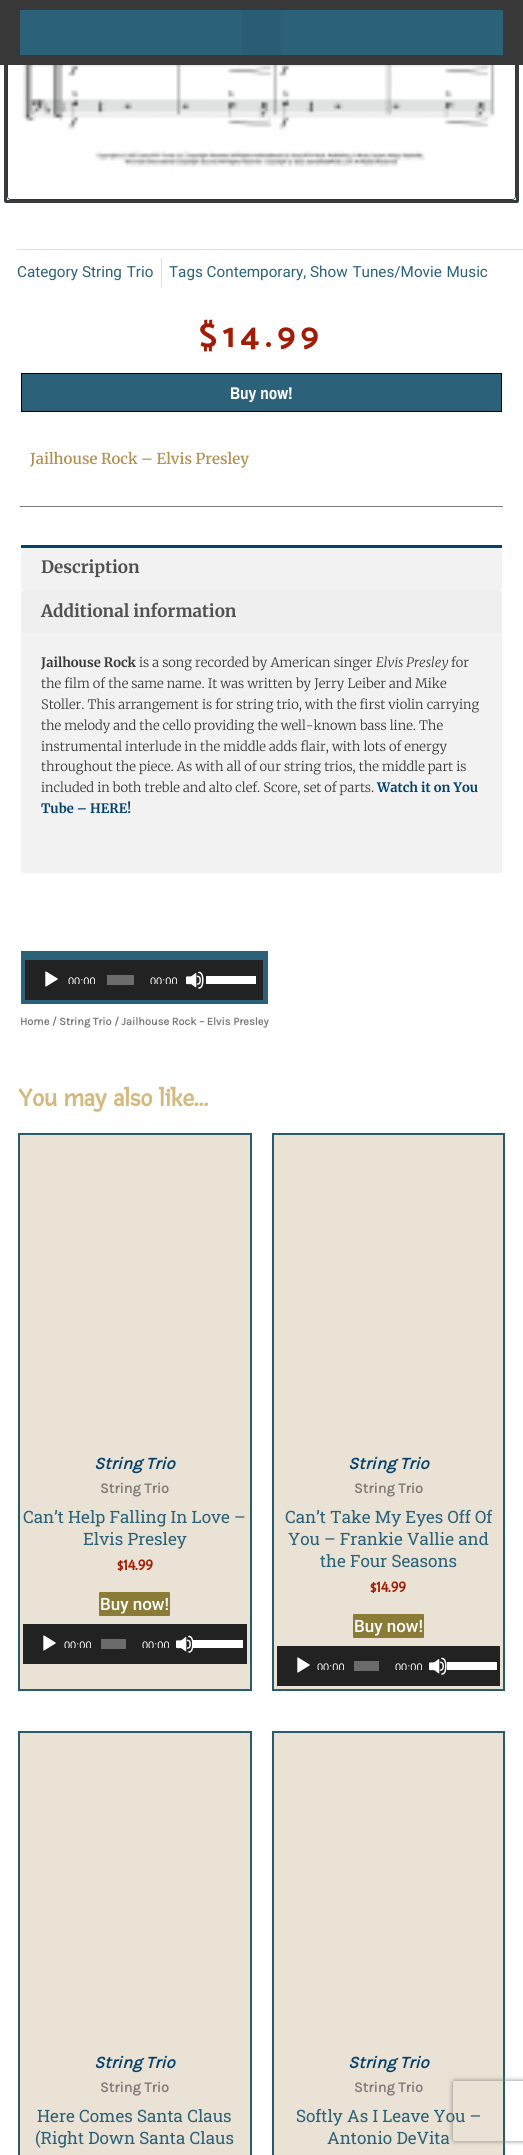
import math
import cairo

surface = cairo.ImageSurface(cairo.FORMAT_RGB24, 523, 2155)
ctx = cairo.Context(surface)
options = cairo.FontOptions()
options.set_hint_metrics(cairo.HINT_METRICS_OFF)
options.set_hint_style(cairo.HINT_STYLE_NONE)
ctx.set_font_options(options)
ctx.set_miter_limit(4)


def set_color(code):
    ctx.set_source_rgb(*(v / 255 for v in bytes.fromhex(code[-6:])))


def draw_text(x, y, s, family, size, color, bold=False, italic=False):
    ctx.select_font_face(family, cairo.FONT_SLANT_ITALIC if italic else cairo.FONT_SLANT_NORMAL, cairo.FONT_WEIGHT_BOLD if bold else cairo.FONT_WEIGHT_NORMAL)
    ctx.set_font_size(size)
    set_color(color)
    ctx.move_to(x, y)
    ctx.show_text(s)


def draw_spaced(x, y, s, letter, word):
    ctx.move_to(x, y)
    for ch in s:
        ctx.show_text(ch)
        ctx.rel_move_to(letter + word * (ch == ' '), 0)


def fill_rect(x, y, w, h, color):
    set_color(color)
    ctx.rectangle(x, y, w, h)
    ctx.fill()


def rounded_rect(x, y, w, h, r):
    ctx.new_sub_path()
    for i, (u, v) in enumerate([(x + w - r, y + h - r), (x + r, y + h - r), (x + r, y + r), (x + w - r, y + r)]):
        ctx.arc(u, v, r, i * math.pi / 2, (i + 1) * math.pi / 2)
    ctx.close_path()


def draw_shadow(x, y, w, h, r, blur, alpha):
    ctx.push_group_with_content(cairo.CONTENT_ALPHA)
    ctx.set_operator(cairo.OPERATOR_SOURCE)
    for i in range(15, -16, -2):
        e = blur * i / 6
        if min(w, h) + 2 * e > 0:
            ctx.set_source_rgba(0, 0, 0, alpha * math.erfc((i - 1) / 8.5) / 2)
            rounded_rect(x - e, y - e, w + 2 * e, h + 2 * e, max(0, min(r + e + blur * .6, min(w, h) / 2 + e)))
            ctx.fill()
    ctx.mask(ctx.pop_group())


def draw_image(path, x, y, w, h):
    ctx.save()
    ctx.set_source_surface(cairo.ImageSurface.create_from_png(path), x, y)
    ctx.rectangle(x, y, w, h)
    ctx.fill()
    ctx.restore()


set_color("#ffffff")
ctx.paint()
rounded_rect(5.5, -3.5, 512, 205, 0.5)
set_color("#3a3a3a")
ctx.set_line_width(3)
ctx.stroke()
rounded_rect(7.5, -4.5, 508, 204, 3.5)
set_color("#04426b")
ctx.set_line_width(1)
ctx.stroke()
fill_rect(0, 0, 523, 65, "#383838")
fill_rect(20, 10, 483, 45, "#2b6279")
fill_rect(242, 10, 39, 45, "#295d73")
draw_image("assets/img1.png", 8, 65, 507, 134)
fill_rect(17, 249, 506, 1, "#dddddd")
draw_text(17, 277, "Category", "Roboto", 15.25, "#2b6279")
draw_spaced(82, 277, "String Trio", 0, 1)
fill_rect(161, 258, 1, 29, "#dddddd")
draw_text(169, 277, "Tags Contemporary,", "Roboto", 15.25, "#2b6279")
draw_spaced(310, 277, "Show Tunes/Movie Music", 0, 1)
ctx.select_font_face("Catamaran", cairo.FONT_SLANT_NORMAL, cairo.FONT_WEIGHT_BOLD)
ctx.set_font_size(34)
set_color("#a01d07")
draw_spaced(199, 347, "$14.99", 5.5, 0)
set_color("#2b6279")
ctx.rectangle(21.5, 373.5, 480, 38)
ctx.fill_preserve()
set_color("#000000")
ctx.stroke()
draw_text(230, 399, "Buy now!", "Archivo Narrow", 17, "#ffffff", bold=True)
fill_rect(20, 506, 483, 1, "#7a7a7a")
draw_text(30, 464, "Jailhouse Rock – Elvis Presley", "Merriweather SemiBold", 15, "#b39151")
fill_rect(21, 548, 481, 41, "#f2f2f2")
fill_rect(21, 545, 481, 3, "#04426b")
draw_text(41, 573, "Description", "Merriweather", 17, "#515151", bold=True)
set_color("#efefef")
ctx.new_path()
ctx.move_to(25, 589)
ctx.line_to(498, 589)
ctx.curve_to(500, 589, 502, 591, 502, 593)
ctx.line_to(502, 633)
ctx.line_to(21, 633)
ctx.line_to(21, 593)
ctx.curve_to(21, 591, 23, 589, 25, 589)
ctx.close_path()
ctx.fill()
draw_text(41, 617, "Additional information", "Merriweather", 17, "#515151", bold=True)
fill_rect(21, 633, 481, 240, "#f2f2f2")
draw_text(41, 667, "Jailhouse Rock", "Merriweather", 13, "#3a3a3a", bold=True)
draw_text(139, 667, "is a song recorded by American singer", "Merriweather Light", 13, "#3a3a3a")
draw_text(376, 667, "Elvis Presley", "Merriweather Light", 13, "#3a3a3a", italic=True)
draw_text(451, 667, "for", "Merriweather Light", 13, "#3a3a3a")
draw_text(41, 688, "the film of the same name. It was written by Jerry Leiber and Mike", "Merriweather Light", 13, "#3a3a3a")
draw_text(41, 709, "Stoller. This arrangement is for string trio, with the first violin carrying", "Merriweather Light", 13, "#3a3a3a")
draw_text(41, 730, "the melody and the cello providing the well-known bass line. The", "Merriweather Light", 13, "#3a3a3a")
draw_text(41, 751, "instrumental interlude in the middle adds flair, with lots of energy", "Merriweather Light", 13, "#3a3a3a")
draw_text(41, 771, "throughout the piece. As with all of our string trios, the middle part is", "Merriweather Light", 13, "#3a3a3a")
draw_text(41, 792, "included in both treble and alto clef. Score, set of parts.", "Merriweather Light", 13, "#3a3a3a")
draw_text(377, 792, "Watch it on You", "Merriweather", 13, "#04426b", bold=True)
draw_text(41, 813, "Tube – HERE!", "Merriweather", 13, "#04426b", bold=True)
fill_rect(21, 951, 247, 53, "#2b6279")
fill_rect(25, 960, 238, 40, "#222222")
draw_image("assets/img2.png", 45, 971, 13, 16)
ctx.save()
ctx.rectangle(62, 960, 35, 24)
ctx.clip()
draw_text(68, 985, "00:00", "Liberation Sans", 11, "#ffffff")
ctx.restore()
fill_rect(107, 975, 27, 10, "#6b6b6b")
ctx.save()
ctx.rectangle(144, 960, 35, 24)
ctx.clip()
draw_text(150, 985, "00:00", "Liberation Sans", 11, "#ffffff")
ctx.restore()
draw_image("assets/img3.png", 186, 971, 18, 18)
fill_rect(206, 976, 50, 8, "#ffffff")
draw_text(20, 1025, "Home / String Trio / Jailhouse Rock – Elvis Presley", "Karla", 11, "#777777", bold=True)
draw_text(18, 1106, "You may also like…", "Fresca", 25.5, "#d5ba7f", bold=True)
set_color("#eae2d4")
ctx.rectangle(19, 1134, 232, 556)
ctx.fill_preserve()
set_color("#285b6c")
ctx.set_line_width(2)
ctx.stroke()
draw_text(94, 1469, "String Trio", "Karla", 17, "#04426b", bold=True, italic=True)
draw_text(100, 1493, "String Trio", "Karla", 14.5, "#807d78", bold=True)
draw_text(23, 1523, "Can’t Help Falling In Love –", "Roboto Slab", 17, "#2b6279")
draw_text(83, 1545, "Elvis Presley", "Roboto Slab", 17, "#2b6279")
draw_text(117, 1570, "$14.99", "Fresca", 15.25, "#a01d07", bold=True)
set_color("#8a7b37")
rounded_rect(99, 1592, 71, 24, 1)
ctx.fill()
draw_text(100, 1610, "Buy now!", "Roboto Medium", 17, "#ffffff")
fill_rect(23, 1624, 224, 40, "#222222")
draw_image("assets/img2.png", 43, 1635, 13, 16)
ctx.save()
ctx.rectangle(58, 1624, 33, 24)
ctx.clip()
draw_text(64, 1649, "00:00", "Liberation Sans", 11, "#ffffff")
ctx.restore()
fill_rect(101, 1639, 25, 10, "#6b6b6b")
ctx.save()
ctx.rectangle(136, 1624, 33, 24)
ctx.clip()
draw_text(142, 1649, "00:00", "Liberation Sans", 11, "#ffffff")
ctx.restore()
draw_image("assets/img3.png", 176, 1635, 18, 18)
fill_rect(193, 1640, 50, 8, "#ffffff")
set_color("#eae2d4")
ctx.rectangle(273, 1134, 231, 556)
ctx.fill_preserve()
set_color("#285b6c")
ctx.stroke()
draw_text(348, 1469, "String Trio", "Karla", 17, "#04426b", bold=True, italic=True)
draw_text(354, 1493, "String Trio", "Karla", 14.5, "#807d78", bold=True)
draw_text(285, 1523, "Can’t Take My Eyes Off Of", "Roboto Slab", 17, "#2b6279")
draw_text(288, 1545, "You – Frankie Vallie and", "Roboto Slab", 17, "#2b6279")
draw_text(320, 1567, "the Four Seasons", "Roboto Slab", 17, "#2b6279")
draw_text(370, 1592, "$14.99", "Fresca", 15.25, "#a01d07", bold=True)
set_color("#8a7b37")
rounded_rect(353, 1614, 71, 24, 1)
ctx.fill()
draw_text(354, 1632, "Buy now!", "Roboto Medium", 17, "#ffffff")
fill_rect(277, 1646, 223, 40, "#222222")
draw_image("assets/img2.png", 297, 1657, 13, 16)
ctx.save()
ctx.rectangle(311, 1646, 33, 24)
ctx.clip()
draw_text(317, 1671, "00:00", "Liberation Sans", 11, "#ffffff")
ctx.restore()
fill_rect(354, 1661, 25, 10, "#6b6b6b")
ctx.save()
ctx.rectangle(389, 1646, 33, 24)
ctx.clip()
draw_text(395, 1671, "00:00", "Liberation Sans", 11, "#ffffff")
ctx.restore()
draw_image("assets/img3.png", 429, 1657, 18, 18)
fill_rect(447, 1662, 50, 8, "#ffffff")
set_color("#eae2d4")
ctx.rectangle(19, 1732, 232, 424)
ctx.fill_preserve()
set_color("#285b6c")
ctx.stroke()
draw_text(94, 2068, "String Trio", "Karla", 17, "#04426b", bold=True, italic=True)
draw_text(100, 2092, "String Trio", "Karla", 14.5, "#807d78", bold=True)
draw_text(37, 2122, "Here Comes Santa Claus", "Roboto Slab", 17, "#2b6279")
draw_text(35, 2144, "(Right Down Santa Claus", "Roboto Slab", 17, "#2b6279")
set_color("#eae2d4")
ctx.rectangle(273, 1732, 231, 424)
ctx.fill_preserve()
set_color("#285b6c")
ctx.stroke()
draw_text(348, 2068, "String Trio", "Karla", 17, "#04426b", bold=True, italic=True)
draw_text(354, 2092, "String Trio", "Karla", 14.5, "#807d78", bold=True)
draw_text(296, 2122, "Softly As I Leave You –", "Roboto Slab", 17, "#2b6279")
draw_text(327, 2144, "Antonio DeVita", "Roboto Slab", 17, "#2b6279")
ctx.save()
ctx.set_fill_rule(cairo.FILL_RULE_EVEN_ODD)
ctx.new_path()
ctx.move_to(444, 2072)
ctx.line_to(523, 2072)
ctx.line_to(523, 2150)
ctx.line_to(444, 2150)
ctx.close_path()
ctx.move_to(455, 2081)
ctx.line_to(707, 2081)
ctx.curve_to(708, 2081, 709, 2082, 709, 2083)
ctx.line_to(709, 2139)
ctx.curve_to(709, 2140, 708, 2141, 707, 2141)
ctx.line_to(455, 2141)
ctx.curve_to(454, 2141, 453, 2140, 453, 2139)
ctx.line_to(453, 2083)
ctx.curve_to(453, 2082, 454, 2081, 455, 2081)
ctx.close_path()
ctx.clip()
set_color("#808080")
draw_shadow(453, 2081, 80, 60, 2, 2.5, 1)
ctx.restore()
surface.write_to_png("output.png")
